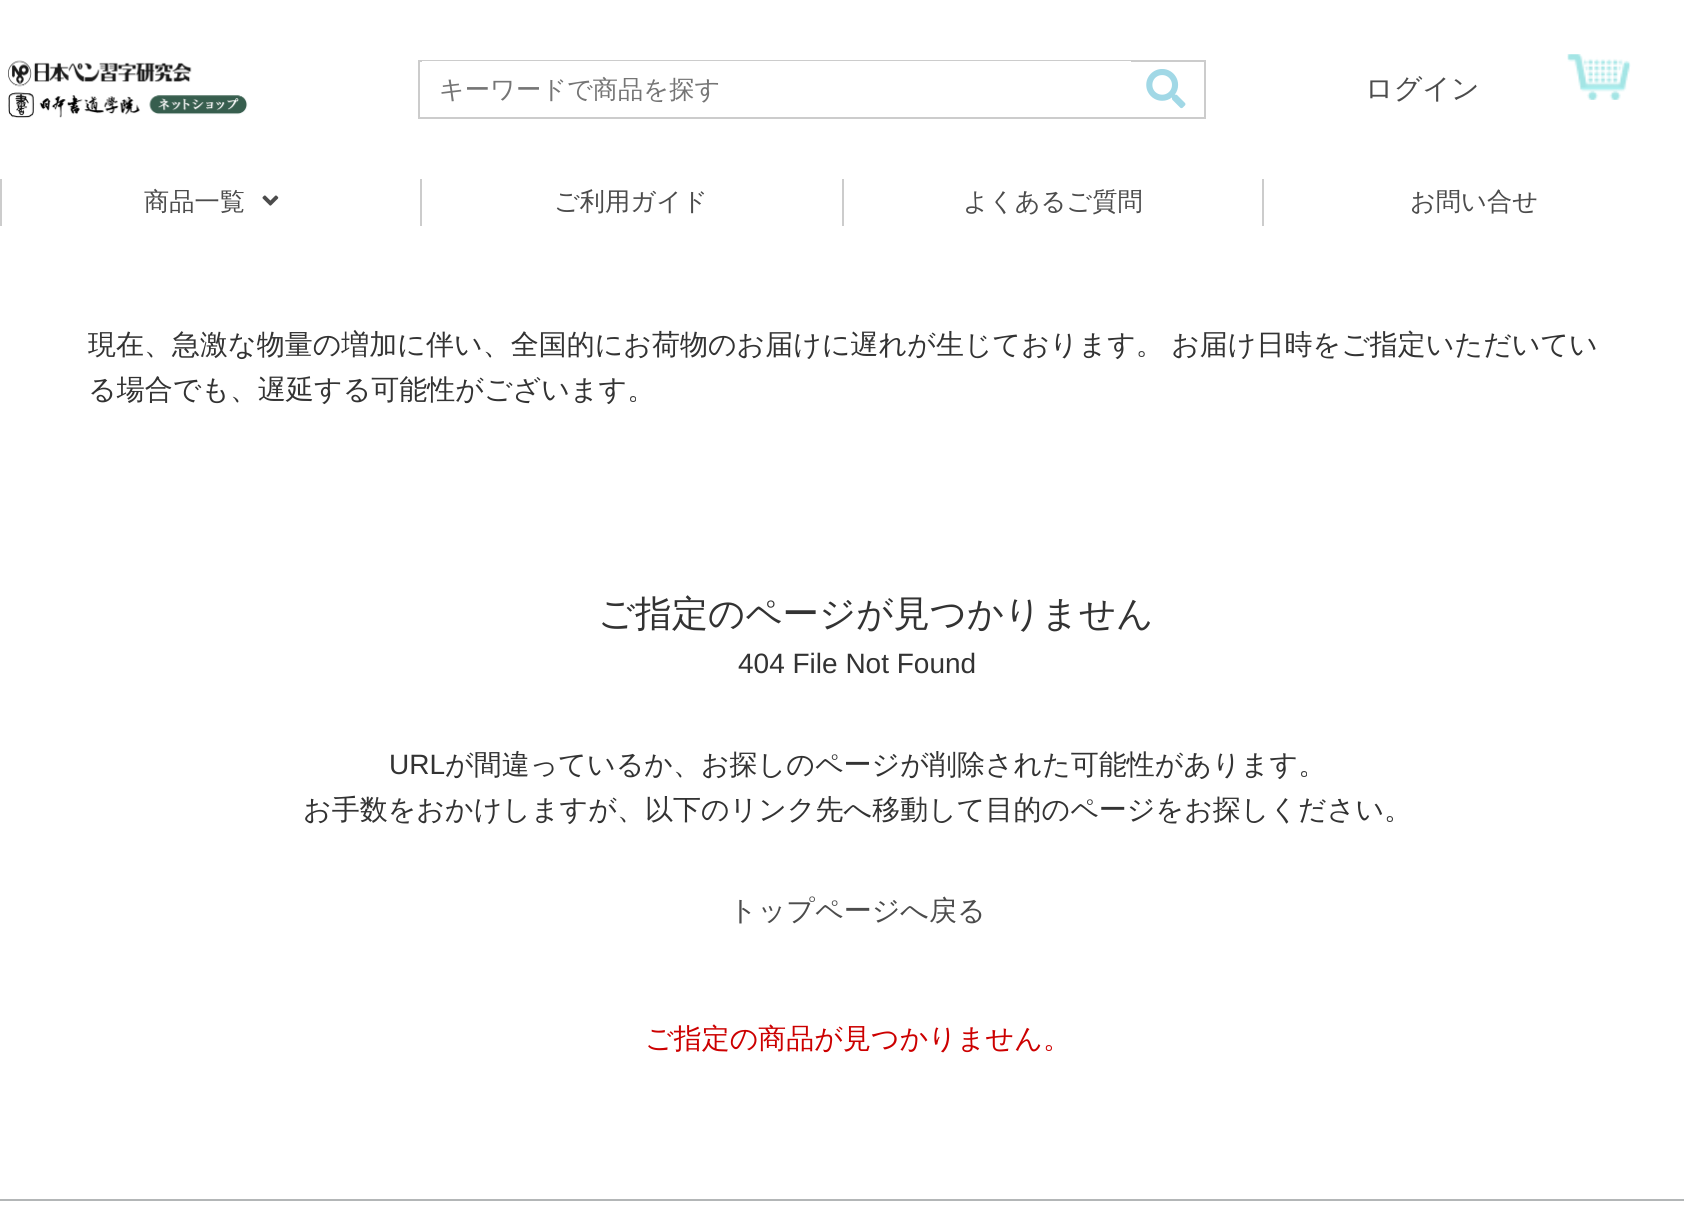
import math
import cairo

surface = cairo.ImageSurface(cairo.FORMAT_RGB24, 1684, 1220)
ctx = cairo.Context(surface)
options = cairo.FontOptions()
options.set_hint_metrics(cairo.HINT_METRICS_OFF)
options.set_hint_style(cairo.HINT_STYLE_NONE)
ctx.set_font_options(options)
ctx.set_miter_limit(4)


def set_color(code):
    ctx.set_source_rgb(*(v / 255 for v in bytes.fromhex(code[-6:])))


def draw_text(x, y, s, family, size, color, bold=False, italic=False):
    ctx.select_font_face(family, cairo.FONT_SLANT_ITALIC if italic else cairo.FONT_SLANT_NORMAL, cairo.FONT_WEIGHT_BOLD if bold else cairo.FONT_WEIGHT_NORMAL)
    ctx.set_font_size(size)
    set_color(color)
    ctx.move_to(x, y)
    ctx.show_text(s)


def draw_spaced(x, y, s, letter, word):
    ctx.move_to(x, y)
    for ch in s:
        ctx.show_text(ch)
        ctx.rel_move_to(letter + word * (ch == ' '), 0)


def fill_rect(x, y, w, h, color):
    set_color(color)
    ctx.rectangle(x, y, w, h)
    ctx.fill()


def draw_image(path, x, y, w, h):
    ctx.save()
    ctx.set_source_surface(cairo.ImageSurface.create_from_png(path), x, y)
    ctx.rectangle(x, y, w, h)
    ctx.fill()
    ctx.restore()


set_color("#ffffff")
ctx.paint()
draw_image("assets/img1.png", 8, 60, 240, 58)
ctx.rectangle(419, 61, 786, 57)
set_color("#cccccc")
ctx.stroke()
fill_rect(422, 61, 709, 1, "#ffffff")
draw_text(439, 98, "キーワードで商品を探す", "WenQuanYi Zen Hei Medium", 25.25, "#757575")
draw_image("assets/img2.png", 1146, 69, 40, 40)
draw_text(1365, 98, "ログイン", "WenQuanYi Zen Hei Medium", 28, "#4c4c4c")
draw_image("assets/img3.png", 1567, 54, 64, 46)
fill_rect(420, 179, 2, 47, "#cccccc")
fill_rect(0, 179, 2, 47, "#cccccc")
draw_text(144, 210, "商品一覧", "WenQuanYi Zen Hei Medium", 25.25, "#4c4c4c")
draw_image("assets/img4.png", 262, 195, 17, 11)
fill_rect(842, 179, 2, 47, "#cccccc")
draw_text(554, 210, "ご利用ガイド", "WenQuanYi Zen Hei Medium", 25.25, "#4c4c4c")
fill_rect(1262, 179, 2, 47, "#cccccc")
draw_text(963, 210, "よくあるご質問", "WenQuanYi Zen Hei Medium", 25.25, "#4c4c4c")
draw_text(1410, 210, "お問い合せ", "WenQuanYi Zen Hei Medium", 25.25, "#4c4c4c")
ctx.set_font_size(28)
set_color("#333333")
draw_spaced(88, 354, "現在、急激な物量の増加に伴い、全国的にお荷物のお届けに遅れが生じております。 お届け日時をご指定いただいてい", 0, -1)
draw_text(88, 399, "る場合でも、遅延する可能性がございます。", "WenQuanYi Zen Hei Medium", 28, "#333333")
draw_text(598, 626, "ご指定のページが見つかりません", "WenQuanYi Zen Hei Medium", 36.4, "#333333")
draw_text(738, 673, "404 File Not Found", "Liberation Sans", 28, "#333333")
draw_text(389, 774, "URL", "Liberation Sans", 28, "#333333")
draw_text(445, 774, "が間違っているか、お探しのページが削除された可能性があります。", "WenQuanYi Zen Hei Medium", 28, "#333333")
draw_text(303, 819, "お手数をおかけしますが、以下のリンク先へ移動して目的のページをお探しください。", "WenQuanYi Zen Hei Medium", 28, "#333333")
draw_text(729, 920, "トップページへ戻る", "WenQuanYi Zen Hei Medium", 28, "#4c4c4c")
draw_text(645, 1048, "ご指定の商品が見つかりません。", "WenQuanYi Zen Hei Medium", 28, "#cc0000")
fill_rect(0, 1199, 1684, 2, "#b3b6b7")
surface.write_to_png("output.png")
